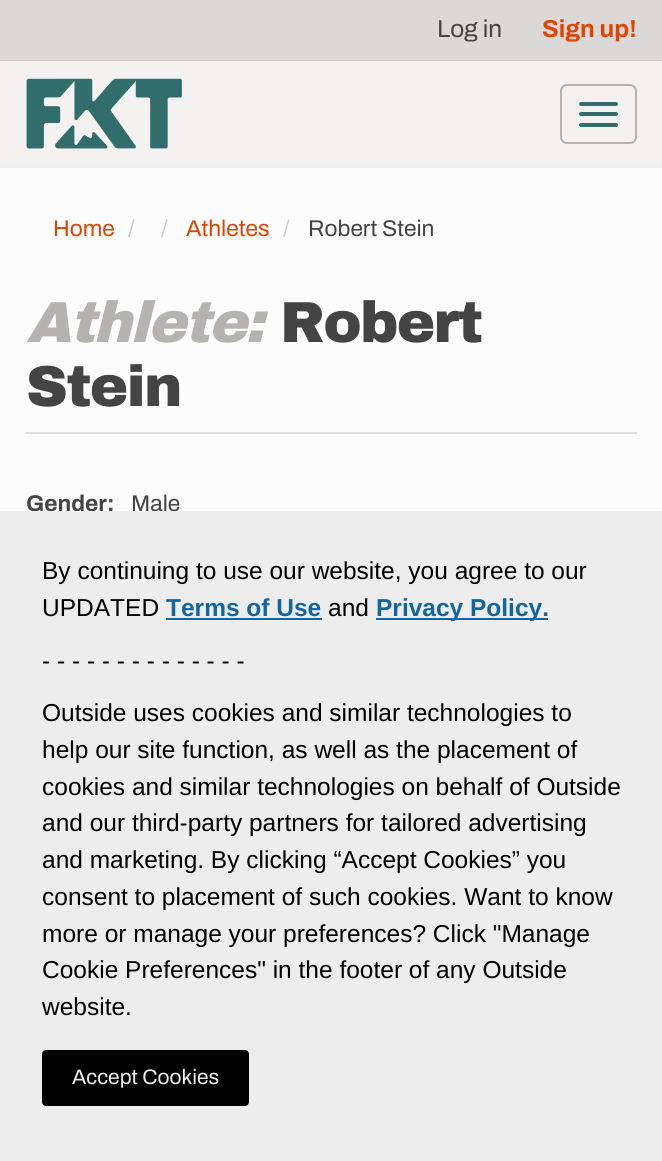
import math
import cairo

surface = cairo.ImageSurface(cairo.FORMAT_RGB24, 662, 1161)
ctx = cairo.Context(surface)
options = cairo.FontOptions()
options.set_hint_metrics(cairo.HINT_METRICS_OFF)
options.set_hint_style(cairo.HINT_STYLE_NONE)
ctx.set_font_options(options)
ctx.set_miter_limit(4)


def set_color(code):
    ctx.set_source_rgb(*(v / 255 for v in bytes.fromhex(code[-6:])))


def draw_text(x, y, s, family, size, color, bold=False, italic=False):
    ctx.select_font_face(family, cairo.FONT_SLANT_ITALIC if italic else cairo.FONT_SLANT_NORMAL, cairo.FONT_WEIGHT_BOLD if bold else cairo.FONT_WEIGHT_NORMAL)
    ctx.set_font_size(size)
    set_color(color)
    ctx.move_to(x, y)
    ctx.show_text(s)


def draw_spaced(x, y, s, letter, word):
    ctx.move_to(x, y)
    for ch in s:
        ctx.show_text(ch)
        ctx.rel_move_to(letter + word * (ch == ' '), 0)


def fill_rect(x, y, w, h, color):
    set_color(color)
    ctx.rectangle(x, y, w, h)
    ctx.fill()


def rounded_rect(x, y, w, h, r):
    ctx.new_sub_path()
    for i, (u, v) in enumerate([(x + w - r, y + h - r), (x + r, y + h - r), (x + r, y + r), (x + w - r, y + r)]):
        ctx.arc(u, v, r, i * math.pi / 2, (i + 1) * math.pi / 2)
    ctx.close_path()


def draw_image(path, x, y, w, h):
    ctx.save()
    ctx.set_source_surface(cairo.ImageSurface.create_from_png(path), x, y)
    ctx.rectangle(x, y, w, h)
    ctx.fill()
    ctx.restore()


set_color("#fcfcfc")
ctx.paint()
fill_rect(0, 0, 662, 60, "#dad9d7")
fill_rect(0, 60, 662, 1, "#ceccca")
draw_text(437, 37, "Log in", "Archivo", 24.5, "#444444")
draw_text(542, 37, "Sign up!", "Archivo", 24.5, "#e14400", bold=True)
fill_rect(0, 61, 662, 105, "#f3f2f1")
fill_rect(0, 166, 662, 2, "#eeeeee")
draw_image("assets/img1.png", 26, 78, 156, 71)
rounded_rect(561, 85, 75, 58, 6)
set_color("#b5b3af")
ctx.stroke()
set_color("#336c6b")
rounded_rect(579, 102, 39, 4, 2)
ctx.fill()
rounded_rect(579, 112, 39, 4, 2)
ctx.fill()
rounded_rect(579, 123, 39, 4, 2)
ctx.fill()
draw_text(53, 236, "Home", "Archivo", 22.75, "#e14400")
draw_text(128, 236, "/", "Archivo", 22.75, "#cccccc")
draw_text(161, 236, "/", "Archivo", 22.75, "#cccccc")
draw_text(186, 236, "Athletes", "Archivo", 22.75, "#e14400")
draw_text(283, 236, "/", "Archivo", 22.75, "#cccccc")
draw_text(308, 236, "Robert Stein", "Archivo", 22.75, "#444444")
fill_rect(26, 432, 611, 2, "#dddddd")
ctx.select_font_face("Archivo Black Black", cairo.FONT_SLANT_ITALIC)
ctx.set_font_size(57.75)
set_color("#b5b3af")
draw_spaced(26, 342, "Athlete:", -1.75, 0)
ctx.select_font_face("Archivo Black Black")
set_color("#444444")
draw_spaced(280, 342, "Robert", -1.75, 0)
draw_spaced(26, 406, "Stein", -1.75, 0)
draw_text(26, 511, "Gender:", "Archivo", 22.75, "#444444", bold=True)
draw_text(131, 511, "Male", "Archivo", 22.75, "#444444")
fill_rect(0, 511, 662, 650, "#ededed")
draw_text(42, 579, "By continuing to use our website, you agree to our", "Liberation Sans", 24.5, "#000000")
draw_text(42, 616, "UPDATED", "Liberation Sans", 24.5, "#000000")
draw_text(166, 616, "Terms of Use", "Liberation Sans", 24.5, "#1264a3", bold=True)
fill_rect(166, 618, 156, 2, "#1264a3")
draw_text(328, 616, "and", "Liberation Sans", 24.5, "#000000")
fill_rect(376, 618, 172, 2, "#1264a3")
draw_text(376, 616, "Privacy Policy.", "Liberation Sans", 24.5, "#1264a3", bold=True)
draw_text(42, 669, "- - - - - - - - - - - - - -", "Liberation Sans", 24.5, "#000000")
draw_text(42, 721, "Outside uses cookies and similar technologies to", "Liberation Sans", 24.5, "#000000")
draw_text(42, 758, "help our site function, as well as the placement of", "Liberation Sans", 24.5, "#000000")
draw_text(42, 795, "cookies and similar technologies on behalf of Outside", "Liberation Sans", 24.5, "#000000")
draw_text(42, 831, "and our third-party partners for tailored advertising", "Liberation Sans", 24.5, "#000000")
draw_text(42, 868, "and marketing. By clicking “Accept Cookies” you", "Liberation Sans", 24.5, "#000000")
draw_text(42, 905, "consent to placement of such cookies. Want to know", "Liberation Sans", 24.5, "#000000")
draw_text(42, 942, "more or manage your preferences? Click \"Manage", "Liberation Sans", 24.5, "#000000")
draw_text(42, 978, "Cookie Preferences\" in the footer of any Outside", "Liberation Sans", 24.5, "#000000")
draw_text(42, 1015, "website.", "Liberation Sans", 24.5, "#000000")
rounded_rect(43, 1051, 205, 54, 3)
ctx.fill_preserve()
ctx.stroke()
draw_text(72, 1084, "Accept Cookies", "Archivo", 21, "#ededed")
surface.write_to_png("output.png")
